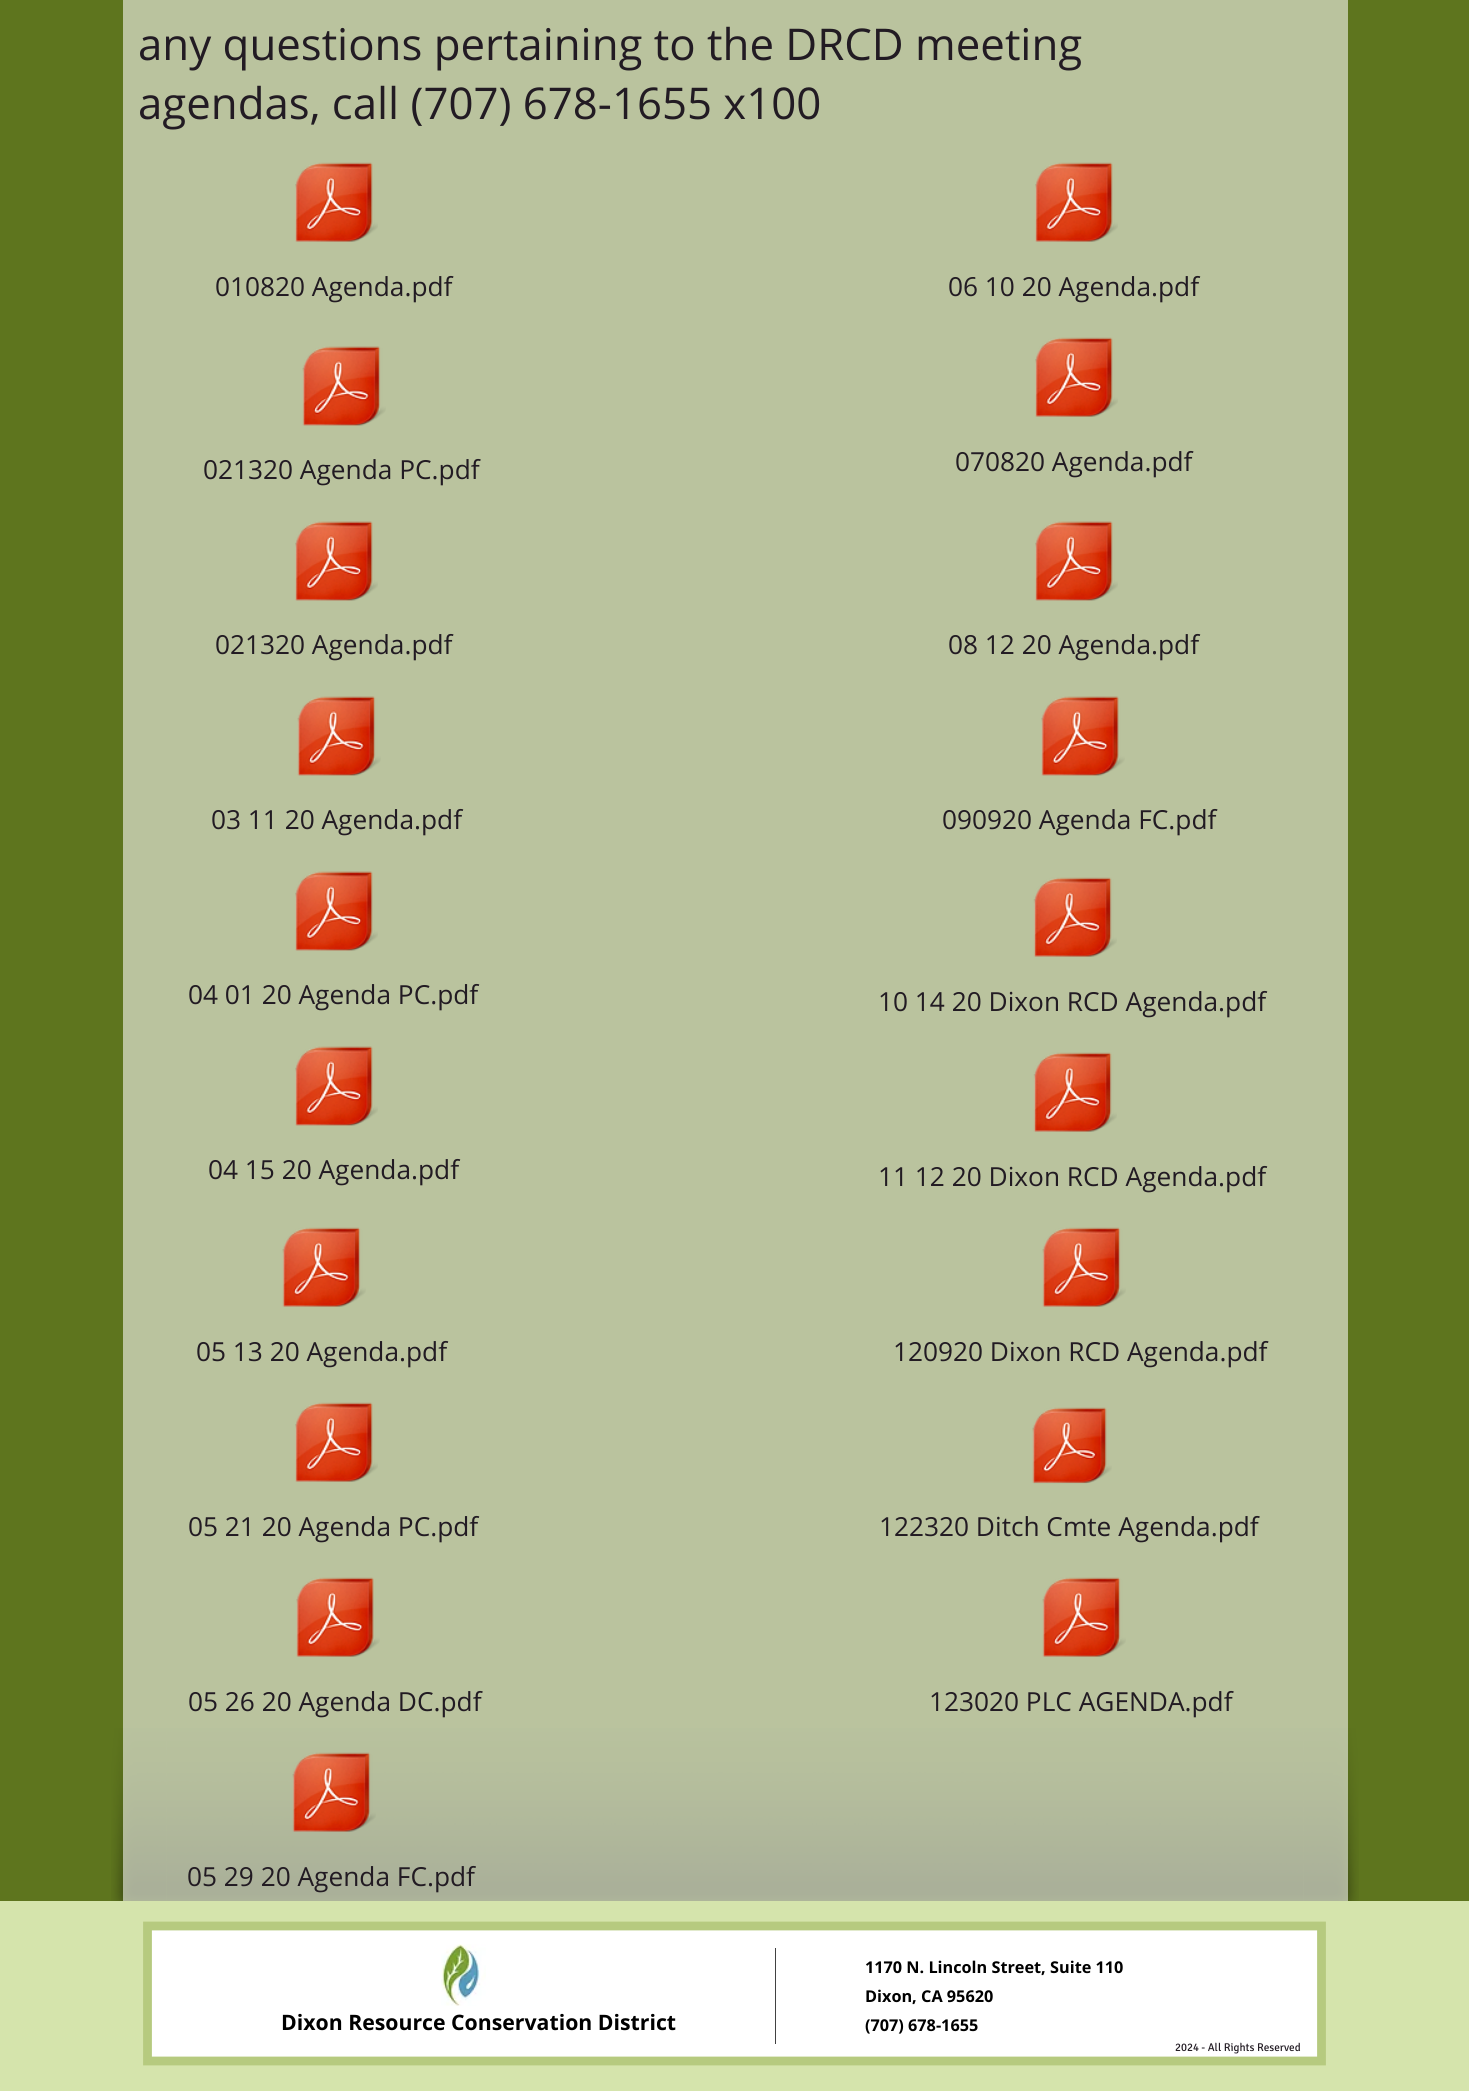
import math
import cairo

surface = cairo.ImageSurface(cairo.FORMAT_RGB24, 1469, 2091)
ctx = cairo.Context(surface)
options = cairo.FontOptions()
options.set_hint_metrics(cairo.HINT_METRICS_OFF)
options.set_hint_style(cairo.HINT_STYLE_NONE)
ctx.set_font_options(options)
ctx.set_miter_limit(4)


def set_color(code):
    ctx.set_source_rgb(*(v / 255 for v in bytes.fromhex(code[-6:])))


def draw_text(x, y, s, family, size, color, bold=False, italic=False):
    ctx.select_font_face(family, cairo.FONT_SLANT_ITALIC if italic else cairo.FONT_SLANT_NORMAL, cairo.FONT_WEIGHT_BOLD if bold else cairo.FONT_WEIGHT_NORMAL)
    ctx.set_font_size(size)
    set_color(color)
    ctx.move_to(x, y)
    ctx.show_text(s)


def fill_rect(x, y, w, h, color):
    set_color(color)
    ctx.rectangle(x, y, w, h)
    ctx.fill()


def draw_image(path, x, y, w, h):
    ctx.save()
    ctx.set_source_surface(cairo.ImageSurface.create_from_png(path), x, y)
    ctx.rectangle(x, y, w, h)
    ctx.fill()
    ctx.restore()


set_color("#5e751e")
ctx.paint()
draw_image("assets/img1.png", 111, 1728, 56, 173)
draw_image("assets/img2.png", 166, 1728, 1138, 173)
draw_image("assets/img3.png", 1303, 1728, 56, 173)
ctx.set_source_rgba(1, 1, 1, 0.57)
ctx.rectangle(123, 0, 1225, 1901)
ctx.fill()
draw_text(138, 60, "any questions pertaining to the DRCD meeting", "Open Sans", 43.75, "#221b23")
draw_text(138, 119, "agendas, call (707) 678-1655 x100", "Open Sans", 43.75, "#221b23")
draw_image("assets/img4.png", 295, 162, 83, 80)
draw_text(215, 296, "010820 Agenda.pdf", "Open Sans", 26.25, "#221b23")
draw_image("assets/img4.png", 1035, 162, 83, 80)
draw_text(948, 296, "06 10 20 Agenda.pdf", "Open Sans", 26.25, "#221b23")
draw_image("assets/img5.png", 302, 346, 84, 80)
draw_text(203, 479, "021320 Agenda PC.pdf", "Open Sans", 26.25, "#221b23")
draw_image("assets/img4.png", 1035, 337, 83, 80)
draw_text(955, 471, "070820 Agenda.pdf", "Open Sans", 26.25, "#221b23")
draw_image("assets/img6.png", 295, 521, 83, 80)
draw_text(215, 654, "021320 Agenda.pdf", "Open Sans", 26.25, "#221b23")
draw_image("assets/img6.png", 1035, 521, 83, 80)
draw_text(948, 654, "08 12 20 Agenda.pdf", "Open Sans", 26.25, "#221b23")
draw_image("assets/img5.png", 297, 696, 84, 80)
draw_text(211, 829, "03 11 20 Agenda.pdf", "Open Sans", 26.25, "#221b23")
draw_image("assets/img7.png", 1041, 696, 84, 80)
draw_text(942, 829, "090920 Agenda FC.pdf", "Open Sans", 26.25, "#221b23")
draw_image("assets/img6.png", 295, 871, 83, 80)
draw_text(188, 1004, "04 01 20 Agenda PC.pdf", "Open Sans", 26.25, "#221b23")
draw_image("assets/img8.png", 1033, 877, 84, 80)
draw_text(878, 1011, "10 14 20 Dixon RCD Agenda.pdf", "Open Sans", 26.25, "#221b23")
draw_image("assets/img6.png", 295, 1046, 83, 80)
draw_text(208, 1179, "04 15 20 Agenda.pdf", "Open Sans", 26.25, "#221b23")
draw_image("assets/img8.png", 1033, 1052, 84, 80)
draw_text(878, 1186, "11 12 20 Dixon RCD Agenda.pdf", "Open Sans", 26.25, "#221b23")
draw_image("assets/img9.png", 282, 1227, 84, 80)
draw_text(196, 1361, "05 13 20 Agenda.pdf", "Open Sans", 26.25, "#221b23")
draw_image("assets/img9.png", 1042, 1227, 84, 80)
draw_text(893, 1361, "120920 Dixon RCD Agenda.pdf", "Open Sans", 26.25, "#221b23")
draw_image("assets/img4.png", 295, 1402, 83, 80)
draw_text(188, 1536, "05 21 20 Agenda PC.pdf", "Open Sans", 26.25, "#221b23")
draw_image("assets/img10.png", 1032, 1407, 80, 77)
draw_text(879, 1536, "122320 Ditch Cmte Agenda.pdf", "Open Sans", 26.25, "#221b23")
draw_image("assets/img11.png", 296, 1577, 84, 80)
draw_text(188, 1711, "05 26 20 Agenda DC.pdf", "Open Sans", 26.25, "#221b23")
draw_image("assets/img9.png", 1042, 1577, 84, 80)
draw_text(929, 1711, "123020 PLC AGENDA.pdf", "Open Sans", 26.25, "#221b23")
draw_image("assets/img12.png", 292, 1752, 84, 80)
draw_text(187, 1886, "05 29 20 Agenda FC.pdf", "Open Sans", 26.25, "#221b23")
fill_rect(0, 1901, 1469, 190, "#d5e4ac")
fill_rect(151, 1930, 1167, 127, "#ffffff")
ctx.new_path()
ctx.move_to(1321.5, 1926)
ctx.line_to(1321.5, 2061)
ctx.line_to(147.5, 2061)
ctx.line_to(147.5, 1926)
ctx.close_path()
set_color("#b6ca7f")
ctx.set_line_width(8.8)
ctx.stroke()
draw_image("assets/img13.png", 441, 1944, 45, 62)
fill_rect(775, 1948, 1, 96, "#424242")
draw_text(865, 1973, "1170 N. Lincoln Street, Suite 110", "Open Sans", 16.25, "#000000", bold=True)
draw_text(865, 2002, "Dixon, CA 95620", "Open Sans", 16.25, "#000000", bold=True)
draw_text(865, 2031, "(707) 678-1655", "Open Sans", 16.25, "#000000", bold=True)
draw_text(281, 2030, "Dixon Resource Conservation District", "Open Sans", 21.25, "#000000", bold=True)
draw_text(1175, 2051, "2024 - All Rights Reserved", "Signika", 11.25, "#221b23")
surface.write_to_png("output.png")
